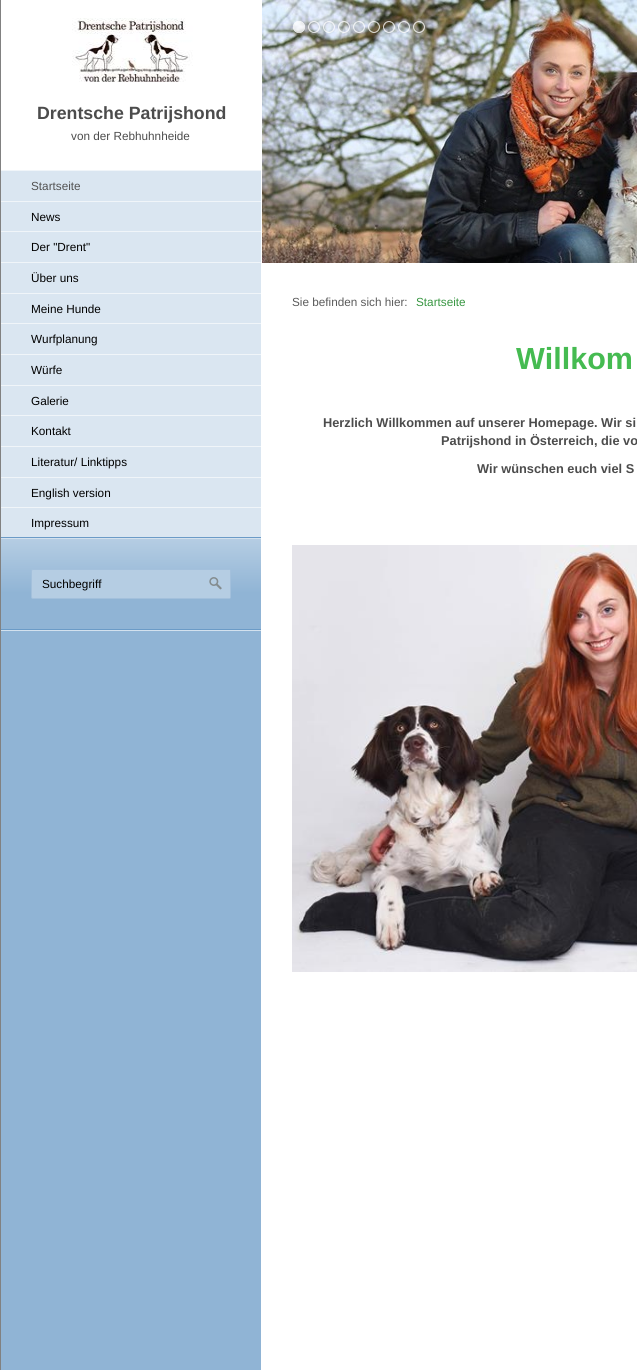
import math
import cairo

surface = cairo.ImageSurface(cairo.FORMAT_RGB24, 637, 1370)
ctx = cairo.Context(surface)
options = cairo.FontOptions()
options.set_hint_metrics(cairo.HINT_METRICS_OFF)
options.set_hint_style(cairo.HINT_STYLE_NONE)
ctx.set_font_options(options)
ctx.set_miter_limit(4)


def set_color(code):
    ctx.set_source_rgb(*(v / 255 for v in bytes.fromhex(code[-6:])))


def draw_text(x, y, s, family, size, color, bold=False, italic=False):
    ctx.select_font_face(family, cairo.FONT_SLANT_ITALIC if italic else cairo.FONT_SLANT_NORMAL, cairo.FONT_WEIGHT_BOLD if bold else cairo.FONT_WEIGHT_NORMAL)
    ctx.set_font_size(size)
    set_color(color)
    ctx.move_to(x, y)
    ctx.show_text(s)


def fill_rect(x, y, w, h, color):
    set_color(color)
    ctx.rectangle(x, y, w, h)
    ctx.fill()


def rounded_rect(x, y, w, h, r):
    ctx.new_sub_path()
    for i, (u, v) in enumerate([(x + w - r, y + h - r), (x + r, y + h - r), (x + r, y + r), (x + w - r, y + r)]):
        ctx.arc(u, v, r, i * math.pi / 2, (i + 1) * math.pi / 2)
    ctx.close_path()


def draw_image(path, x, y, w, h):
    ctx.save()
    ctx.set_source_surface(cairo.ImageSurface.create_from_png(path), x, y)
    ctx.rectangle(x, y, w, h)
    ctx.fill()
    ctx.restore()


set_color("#ffffff")
ctx.paint()
fill_rect(0, 0, 1, 1370, "#818181")
fill_rect(1, 631, 260, 739, "#90b4d5")
draw_image("assets/img1.png", 72, 18, 121, 64)
draw_text(37, 119, "Drentsche Patrijshond", "Liberation Sans", 17.75, "#4c4c4c", bold=True)
draw_text(71, 140, "von der Rebhuhnheide", "Liberation Sans", 11.75, "#4c4c4c")
fill_rect(1, 171, 260, 30, "#dae6f1")
fill_rect(1, 170, 260, 1, "#f0f5f9")
draw_text(31, 190, "Startseite", "Liberation Sans", 11.75, "#525252")
fill_rect(1, 202, 260, 29, "#dae6f1")
fill_rect(1, 201, 260, 1, "#f0f5f9")
draw_text(31, 221, "News", "Liberation Sans", 11.75, "#000000")
fill_rect(1, 232, 260, 30, "#dae6f1")
fill_rect(1, 231, 260, 1, "#f0f5f9")
draw_text(31, 251, "Der \"Drent\"", "Liberation Sans", 11.75, "#000000")
fill_rect(1, 263, 260, 30, "#dae6f1")
fill_rect(1, 262, 260, 1, "#f0f5f9")
draw_text(31, 282, "Über uns", "Liberation Sans", 11.75, "#000000")
fill_rect(1, 294, 260, 29, "#dae6f1")
fill_rect(1, 293, 260, 1, "#f0f5f9")
draw_text(31, 313, "Meine Hunde", "Liberation Sans", 11.75, "#000000")
fill_rect(1, 324, 260, 30, "#dae6f1")
fill_rect(1, 323, 260, 1, "#f0f5f9")
draw_text(31, 343, "Wurfplanung", "Liberation Sans", 11.75, "#000000")
fill_rect(1, 355, 260, 30, "#dae6f1")
fill_rect(1, 354, 260, 1, "#f0f5f9")
draw_text(31, 374, "Würfe", "Liberation Sans", 11.75, "#000000")
fill_rect(1, 386, 260, 29, "#dae6f1")
fill_rect(1, 385, 260, 1, "#f0f5f9")
draw_text(31, 405, "Galerie", "Liberation Sans", 11.75, "#000000")
fill_rect(1, 416, 260, 30, "#dae6f1")
fill_rect(1, 415, 260, 1, "#f0f5f9")
draw_text(31, 435, "Kontakt", "Liberation Sans", 11.75, "#000000")
fill_rect(1, 447, 260, 30, "#dae6f1")
fill_rect(1, 446, 260, 1, "#f0f5f9")
draw_text(31, 466, "Literatur/ Linktipps", "Liberation Sans", 11.75, "#000000")
fill_rect(1, 478, 260, 29, "#dae6f1")
fill_rect(1, 477, 260, 1, "#f0f5f9")
draw_text(31, 497, "English version", "Liberation Sans", 11.75, "#000000")
fill_rect(1, 508, 260, 29, "#dae6f1")
fill_rect(1, 507, 260, 1, "#f0f5f9")
draw_text(31, 527, "Impressum", "Liberation Sans", 11.75, "#000000")
fill_rect(1, 630, 260, 1, "#d3e1ee")
fill_rect(1, 537, 260, 1, "#6b9bc7")
gradient = cairo.LinearGradient(131, 539, 131, 629)
gradient.add_color_stop_rgba(0, 0.71, 0.804, 0.89, 1)
gradient.add_color_stop_rgba(0.6, 0.565, 0.706, 0.835, 1)
ctx.set_source(gradient)
ctx.rectangle(1, 539, 260, 90)
ctx.fill()
fill_rect(1, 538, 260, 1, "#d3e1ee")
fill_rect(1, 629, 260, 1, "#6b9bc7")
set_color("#b5cde3")
rounded_rect(31.5, 569.5, 199, 29, 1.5)
ctx.fill_preserve()
set_color("#a3c0dc")
ctx.set_line_width(1)
ctx.stroke()
draw_text(42, 588, "Suchbegriff", "Liberation Sans", 11.75, "#000000")
fill_rect(229, 570, 1, 28, "#b5cde3")
draw_image("assets/img2.png", 209, 577, 13, 13)
draw_image("assets/img3.png", 262, 0, 375, 263)
draw_image("assets/img4.png", 293, 21, 12, 12)
draw_image("assets/img5.png", 308, 21, 12, 12)
draw_image("assets/img6.png", 323, 21, 12, 12)
draw_image("assets/img7.png", 338, 21, 12, 12)
draw_image("assets/img8.png", 353, 21, 12, 12)
draw_image("assets/img9.png", 368, 21, 12, 12)
draw_image("assets/img10.png", 383, 21, 12, 12)
draw_image("assets/img11.png", 398, 21, 12, 12)
draw_image("assets/img12.png", 413, 21, 12, 12)
draw_text(292, 306, "Sie befinden sich hier:", "Liberation Sans", 11.75, "#5a5a5a")
draw_text(416, 306, "Startseite", "Liberation Sans", 11.75, "#379641")
draw_text(516, 369, "Willkom", "Liberation Sans", 30.5, "#45bb51", bold=True)
draw_text(323, 427, "Herzlich Willkommen auf unserer Homepage. Wir si", "Liberation Sans", 12.8, "#4c4c4c", bold=True)
draw_text(441, 445, "Patrijshond in Österreich, die vo", "Liberation Sans", 12.8, "#4c4c4c", bold=True)
draw_text(477, 473, "Wir wünschen euch viel S", "Liberation Sans", 12.8, "#4c4c4c", bold=True)
draw_image("assets/img13.png", 292, 545, 345, 427)
surface.write_to_png("output.png")
